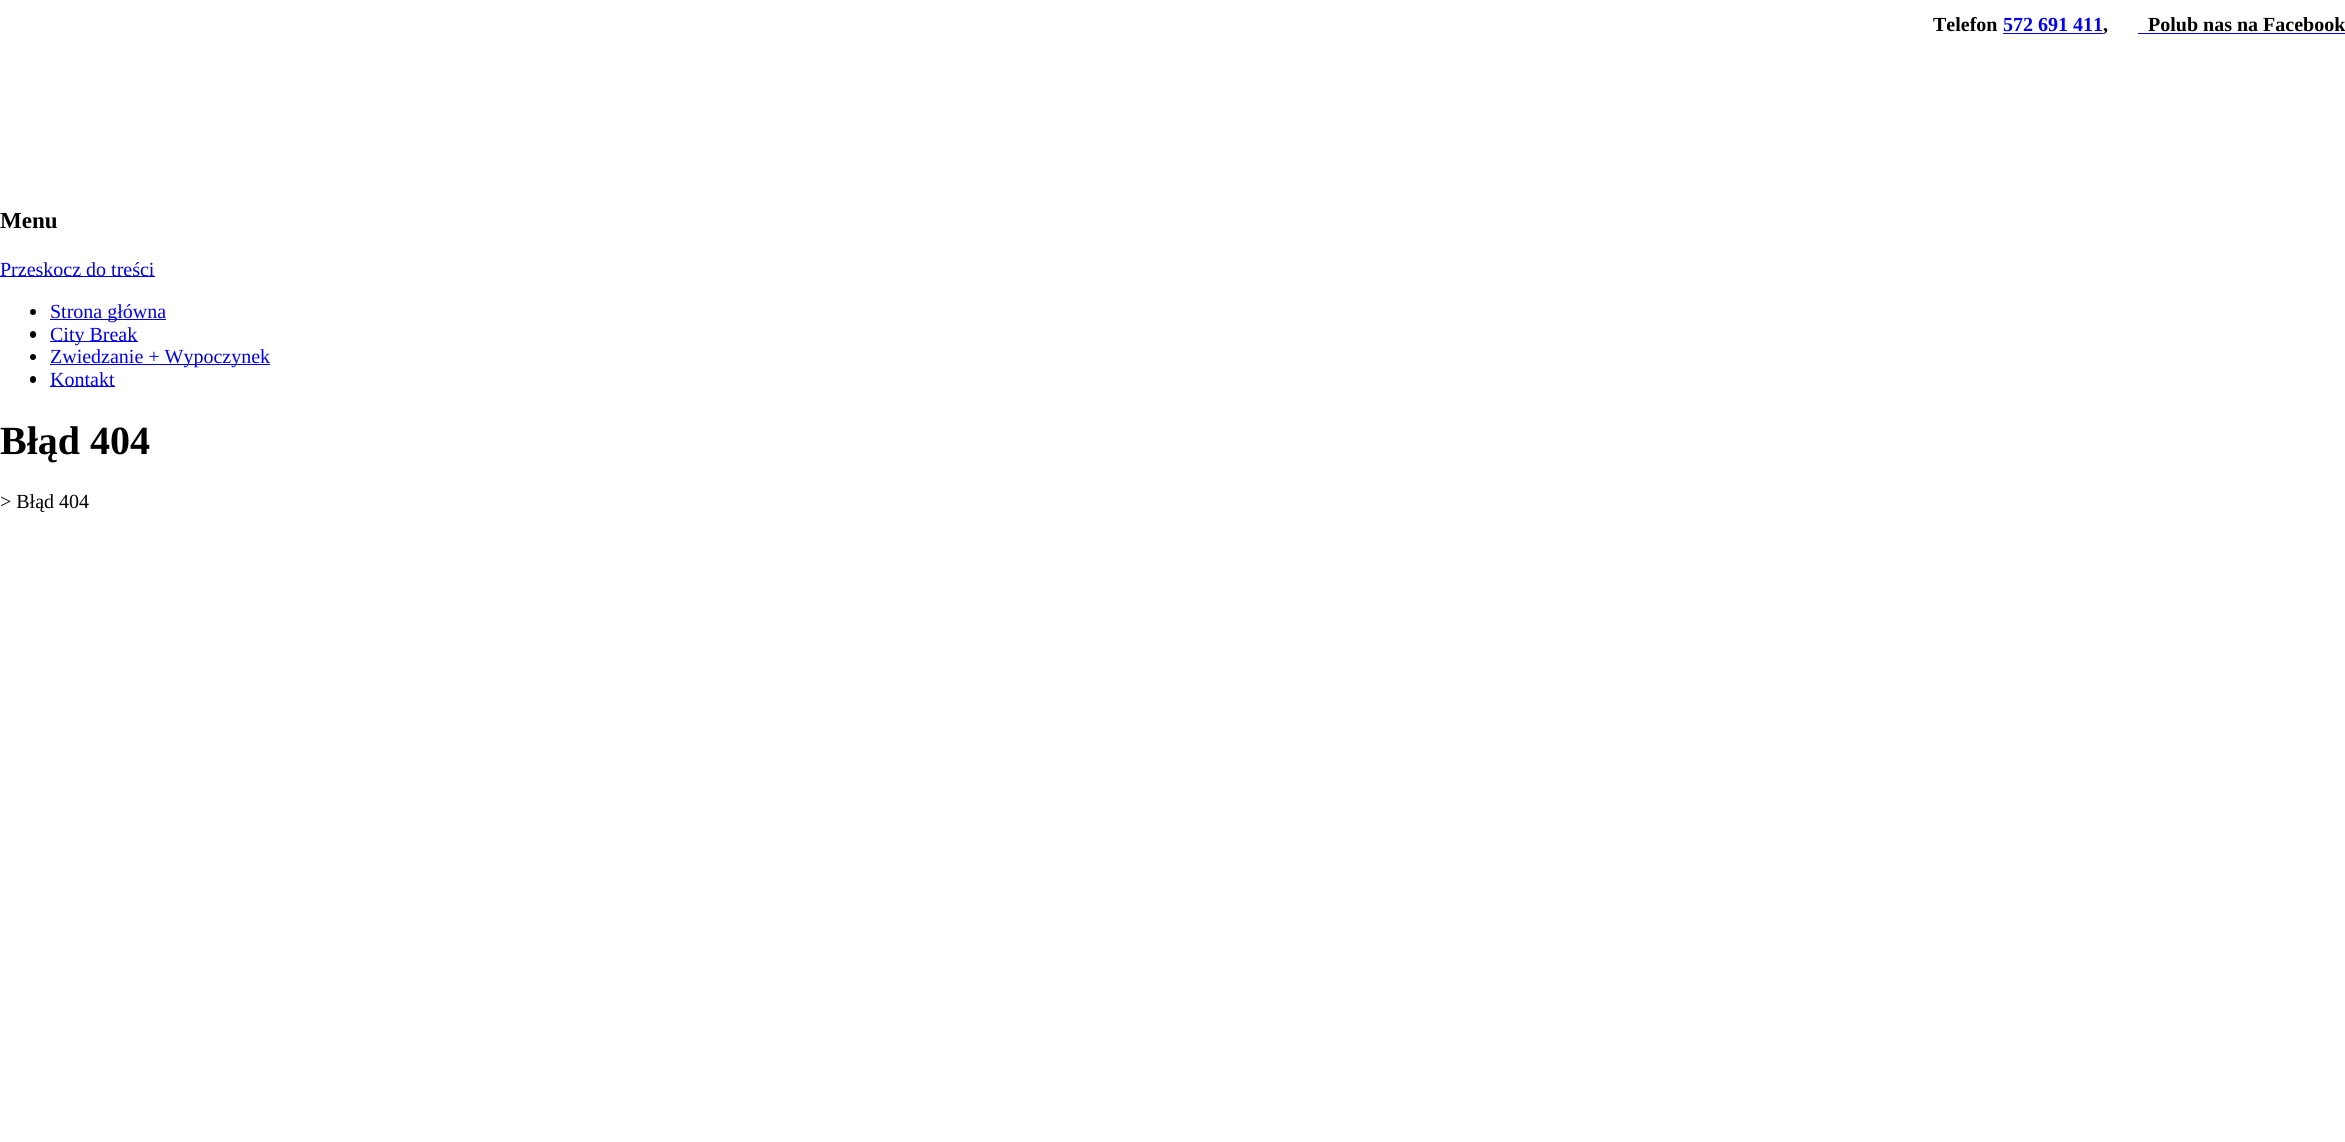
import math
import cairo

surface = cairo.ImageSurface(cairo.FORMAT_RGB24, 2345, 1142)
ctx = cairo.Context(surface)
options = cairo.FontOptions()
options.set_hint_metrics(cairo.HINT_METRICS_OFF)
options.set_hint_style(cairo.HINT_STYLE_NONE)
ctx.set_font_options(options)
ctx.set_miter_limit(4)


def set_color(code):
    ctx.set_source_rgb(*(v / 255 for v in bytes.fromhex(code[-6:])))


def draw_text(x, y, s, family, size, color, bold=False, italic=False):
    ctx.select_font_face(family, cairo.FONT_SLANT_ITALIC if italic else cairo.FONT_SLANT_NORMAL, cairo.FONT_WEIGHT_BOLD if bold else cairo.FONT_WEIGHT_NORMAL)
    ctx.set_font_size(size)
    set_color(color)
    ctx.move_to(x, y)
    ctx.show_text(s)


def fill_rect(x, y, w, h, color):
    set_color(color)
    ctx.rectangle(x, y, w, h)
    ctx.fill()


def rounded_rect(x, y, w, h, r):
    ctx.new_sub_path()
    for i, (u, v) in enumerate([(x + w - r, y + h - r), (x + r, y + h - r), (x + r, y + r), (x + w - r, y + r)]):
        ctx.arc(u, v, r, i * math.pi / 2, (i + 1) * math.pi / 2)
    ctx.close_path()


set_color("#ffffff")
ctx.paint()
draw_text(1933, 31, "Telefon", "Liberation Serif", 20, "#000000", bold=True)
draw_text(2003, 31, "572 691 411", "Liberation Serif", 20, "#0000ee", bold=True)
draw_text(2103, 31, ",", "Liberation Serif", 20, "#000000", bold=True)
fill_rect(2003, 33, 100, 1, "#0000ee")
draw_text(2148, 31, "Polub nas na Facebook", "Liberation Serif", 20, "#000000", bold=True)
fill_rect(2138, 33, 207, 1, "#0000ee")
draw_text(0, 228, "Menu", "Liberation Serif", 23, "#000000", bold=True)
fill_rect(0, 276, 155, 1, "#0000ee")
draw_text(0, 276, "Przeskocz do treści", "Liberation Serif", 20, "#0000ee")
set_color("#000000")
ctx.new_path()
ctx.arc(33, 312, 3, 0, 2 * math.pi)
ctx.fill()
fill_rect(50, 319, 116, 1, "#0000ee")
draw_text(50, 318, "Strona główna", "Liberation Serif", 20, "#0000ee")
set_color("#000000")
rounded_rect(30, 331, 6, 7, 3)
ctx.fill()
fill_rect(50, 341, 88, 1, "#0000ee")
draw_text(50, 341, "City Break", "Liberation Serif", 20, "#0000ee")
set_color("#000000")
ctx.new_path()
ctx.arc(33, 357, 3, 0, 2 * math.pi)
ctx.fill()
fill_rect(50, 364, 220, 1, "#0000ee")
draw_text(50, 363, "Zwiedzanie + Wypoczynek", "Liberation Serif", 20, "#0000ee")
set_color("#000000")
rounded_rect(30, 376, 6, 7, 3)
ctx.fill()
fill_rect(50, 386, 65, 1, "#0000ee")
draw_text(50, 386, "Kontakt", "Liberation Serif", 20, "#0000ee")
draw_text(0, 454, "Błąd 404", "Liberation Serif", 40, "#000000", bold=True)
draw_text(0, 508, "> Błąd 404", "Liberation Serif", 20, "#000000")
surface.write_to_png("output.png")
